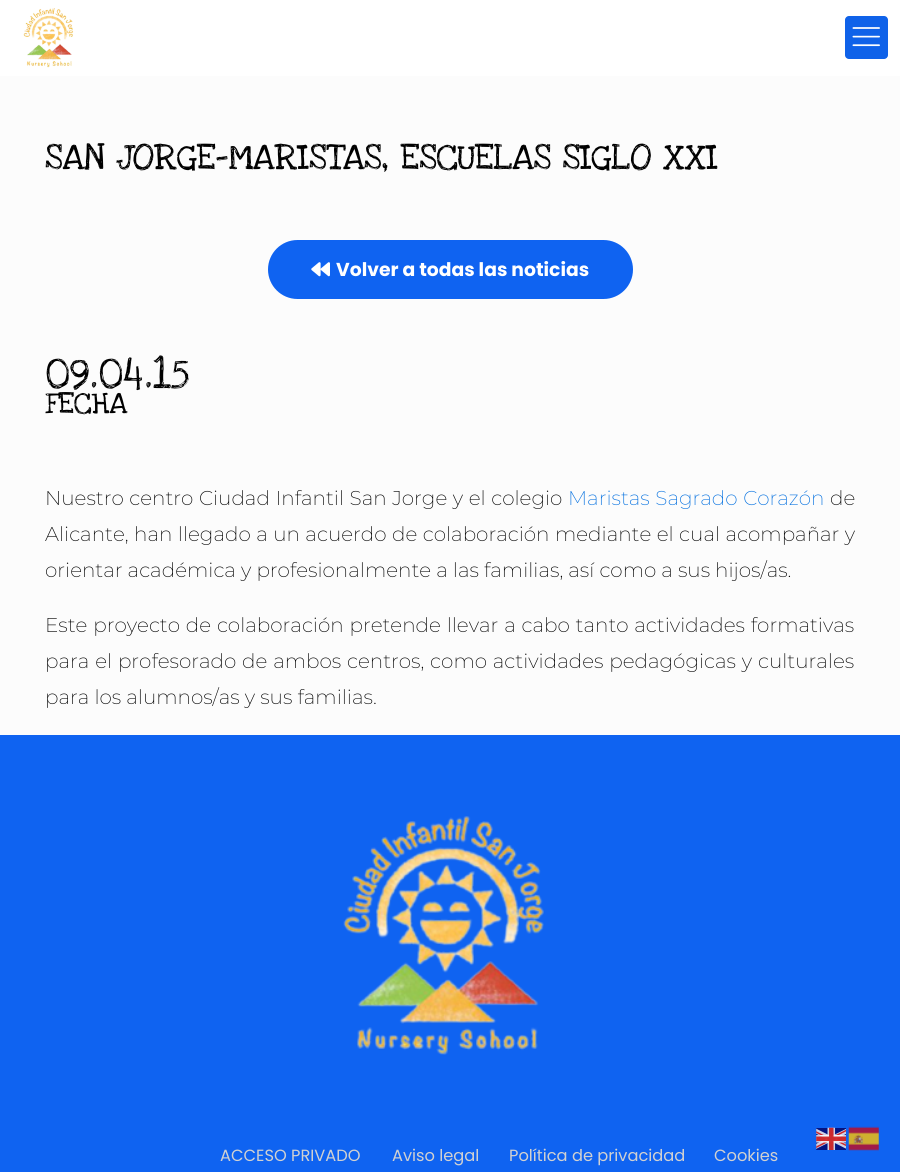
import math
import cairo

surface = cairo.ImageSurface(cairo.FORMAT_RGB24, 900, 1172)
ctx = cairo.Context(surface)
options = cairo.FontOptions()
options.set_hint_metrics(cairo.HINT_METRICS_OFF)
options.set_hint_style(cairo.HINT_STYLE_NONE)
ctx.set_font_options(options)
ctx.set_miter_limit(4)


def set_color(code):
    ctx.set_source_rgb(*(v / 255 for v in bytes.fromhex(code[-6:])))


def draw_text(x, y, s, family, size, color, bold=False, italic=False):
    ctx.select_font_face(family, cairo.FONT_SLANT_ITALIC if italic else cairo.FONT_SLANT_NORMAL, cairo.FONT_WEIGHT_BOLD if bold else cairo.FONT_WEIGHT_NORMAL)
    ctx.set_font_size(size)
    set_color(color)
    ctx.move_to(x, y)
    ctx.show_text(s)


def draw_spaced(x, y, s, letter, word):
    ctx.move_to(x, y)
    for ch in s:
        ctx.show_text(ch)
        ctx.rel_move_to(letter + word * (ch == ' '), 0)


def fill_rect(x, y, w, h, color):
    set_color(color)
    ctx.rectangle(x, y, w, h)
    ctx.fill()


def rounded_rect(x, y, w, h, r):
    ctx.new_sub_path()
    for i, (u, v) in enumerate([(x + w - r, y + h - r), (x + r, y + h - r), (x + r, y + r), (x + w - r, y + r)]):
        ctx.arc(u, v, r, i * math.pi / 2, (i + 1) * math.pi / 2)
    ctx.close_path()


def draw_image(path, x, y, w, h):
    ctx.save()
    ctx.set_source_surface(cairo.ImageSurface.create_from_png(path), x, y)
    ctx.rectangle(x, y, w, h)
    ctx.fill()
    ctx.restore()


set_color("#fcfcfc")
ctx.paint()
fill_rect(0, 0, 900, 76, "#ffffff")
draw_image("assets/img1.png", 23, 8, 51, 60)
set_color("#0f62e9")
rounded_rect(845, 16, 43, 43, 4)
ctx.fill()
draw_image("assets/img2.png", 852, 27, 28, 20)
draw_text(45, 169, "SAN JORGE-MARISTAS, ESCUELAS SIGLO XXI", "Love Ya Like A Sister", 37.5, "#000000")
set_color("#0f63f1")
rounded_rect(268, 240, 365, 59, 29.5)
ctx.fill()
draw_image("assets/img3.png", 311, 262, 19, 15)
draw_text(336, 276, "Volver a todas las noticias", "Poppins", 18.75, "#ffffff", bold=True)
draw_text(45, 388, "09.04.15", "Love Ya Like A Sister", 44, "#000000")
draw_text(45, 413, "FECHA", "Love Ya Like A Sister", 31, "#000000")
ctx.select_font_face("Montserrat ExtraLight")
ctx.set_font_size(20)
draw_spaced(45, 505, "Nuestro centro Ciudad Infantil San Jorge y el colegio", 0, 0.5)
set_color("#006edf")
draw_spaced(568, 505, "Maristas Sagrado Corazón", 0, 0.5)
draw_text(830, 505, "de", "Montserrat ExtraLight", 20, "#000000")
draw_spaced(45, 541, "Alicante, han llegado a un acuerdo de colaboración mediante el cual acompañar y", 0, 0.4)
draw_text(45, 577, "orientar académica y profesionalmente a las familias, así como a sus hijos/as.", "Montserrat ExtraLight", 20, "#000000")
draw_spaced(45, 632, "Este proyecto de colaboración pretende llevar a cabo tanto actividades formativas", 0, 0.75)
draw_spaced(45, 668, "para el profesorado de ambos centros, como actividades pedagógicas y culturales", 0, 0.75)
draw_text(45, 704, "para los alumnos/as y sus familias.", "Montserrat ExtraLight", 20, "#000000")
fill_rect(0, 735, 900, 437, "#0f63f1")
draw_image("assets/img4.png", 343, 816, 201, 239)
draw_text(220, 1161, "ACCESO PRIVADO", "Poppins", 16.25, "#d1d1d1")
draw_text(392, 1161, "Aviso legal", "Poppins", 16.25, "#d1d1d1")
draw_text(509, 1161, "Política de privacidad", "Poppins", 16.25, "#d1d1d1")
draw_text(714, 1161, "Cookies", "Poppins", 16.25, "#d1d1d1")
draw_image("assets/img5.png", 816, 1127, 30, 23)
draw_image("assets/img6.png", 848, 1126, 31, 25)
surface.write_to_png("output.png")
